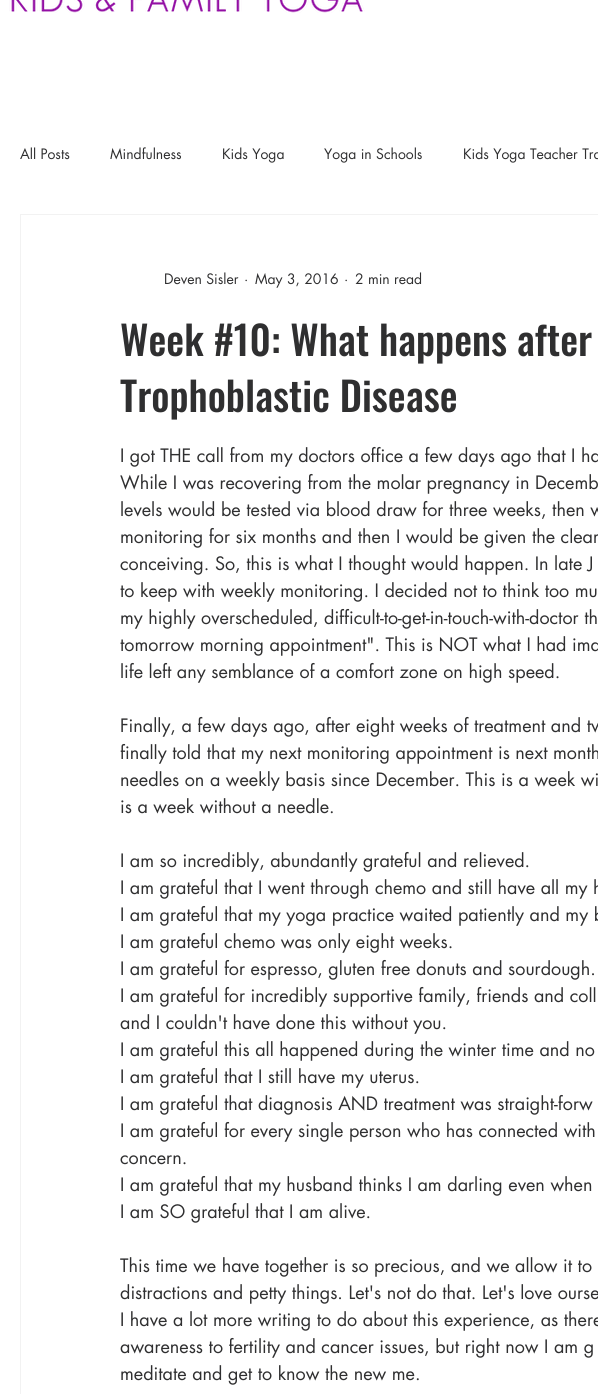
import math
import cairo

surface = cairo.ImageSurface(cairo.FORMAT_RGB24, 598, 1394)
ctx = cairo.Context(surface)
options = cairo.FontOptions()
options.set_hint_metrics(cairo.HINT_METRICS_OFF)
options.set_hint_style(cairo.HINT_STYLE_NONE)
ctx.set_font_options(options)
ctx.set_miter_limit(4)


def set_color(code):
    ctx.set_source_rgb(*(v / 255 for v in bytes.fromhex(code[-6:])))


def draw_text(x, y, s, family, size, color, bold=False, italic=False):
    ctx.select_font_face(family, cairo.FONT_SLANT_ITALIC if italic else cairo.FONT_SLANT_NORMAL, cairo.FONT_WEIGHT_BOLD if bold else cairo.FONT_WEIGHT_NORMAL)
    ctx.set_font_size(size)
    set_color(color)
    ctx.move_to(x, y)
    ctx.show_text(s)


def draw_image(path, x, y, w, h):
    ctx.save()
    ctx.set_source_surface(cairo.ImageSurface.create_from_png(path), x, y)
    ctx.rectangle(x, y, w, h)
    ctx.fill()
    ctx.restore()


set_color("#ffffff")
ctx.paint()
draw_image("assets/img1.png", 9, 0, 356, 13)
draw_text(20, 159, "All Posts", "futura", 14, "#2f2f30")
draw_text(110, 159, "Mindfulness", "futura", 14, "#2f2f30")
draw_text(222, 159, "Kids Yoga", "futura", 14, "#2f2f30")
draw_text(324, 159, "Yoga in Schools", "futura", 14, "#2f2f30")
draw_text(463, 159, "Kids Yoga Teacher Tra", "futura", 14, "#2f2f30")
ctx.rectangle(20.5, 214.5, 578, 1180)
set_color("#f2f2f2")
ctx.set_line_width(1)
ctx.stroke()
draw_text(164, 284, "Deven Sisler", "futura", 14, "#2f2f30")
draw_text(244, 284, "·", "futura", 14, "#2f2f30")
draw_text(255, 284, "May 3, 2016", "futura", 14, "#2f2f30")
draw_text(344, 284, "·", "futura", 14, "#2f2f30")
draw_text(355, 284, "2 min read", "futura", 14, "#2f2f30")
draw_text(120, 356, "Week #10: What happens after", "Oswald Medium", 40, "#2f2f30")
draw_text(120, 412, "Trophoblastic Disease", "Oswald Medium", 40, "#2f2f30")
draw_text(120, 462, "I got THE call from my doctors office a few days ago that I ha", "futura", 18, "#2f2f30")
draw_text(120, 489, "While I was recovering from the molar pregnancy in Decemb", "futura", 18, "#2f2f30")
draw_text(120, 516, "levels would be tested via blood draw for three weeks, then w", "futura", 18, "#2f2f30")
draw_text(120, 543, "monitoring for six months and then I would be given the clear", "futura", 18, "#2f2f30")
draw_text(120, 570, "conceiving. So, this is what I thought would happen. In late J", "futura", 18, "#2f2f30")
draw_text(120, 597, "to keep with weekly monitoring. I decided not to think too mu", "futura", 18, "#2f2f30")
draw_text(120, 624, "my highly overscheduled, difficult-to-get-in-touch-with-doctor th", "futura", 18, "#2f2f30")
draw_text(120, 651, "tomorrow morning appointment\". This is NOT what I had ima", "futura", 18, "#2f2f30")
draw_text(120, 678, "life left any semblance of a comfort zone on high speed.", "futura", 18, "#2f2f30")
draw_text(120, 732, "Finally, a few days ago, after eight weeks of treatment and tw", "futura", 18, "#2f2f30")
draw_text(120, 759, "finally told that my next monitoring appointment is next month", "futura", 18, "#2f2f30")
draw_text(120, 786, "needles on a weekly basis since December. This is a week wi", "futura", 18, "#2f2f30")
draw_text(120, 813, "is a week without a needle.", "futura", 18, "#2f2f30")
draw_text(120, 867, "I am so incredibly, abundantly grateful and relieved.", "futura", 18, "#2f2f30")
draw_text(120, 894, "I am grateful that I went through chemo and still have all my h", "futura", 18, "#2f2f30")
draw_text(120, 921, "I am grateful that my yoga practice waited patiently and my b", "futura", 18, "#2f2f30")
draw_text(120, 948, "I am grateful chemo was only eight weeks.", "futura", 18, "#2f2f30")
draw_text(120, 975, "I am grateful for espresso, gluten free donuts and sourdough.", "futura", 18, "#2f2f30")
draw_text(120, 1002, "I am grateful for incredibly supportive family, friends and coll", "futura", 18, "#2f2f30")
draw_text(120, 1029, "and I couldn't have done this without you.", "futura", 18, "#2f2f30")
draw_text(120, 1056, "I am grateful this all happened during the winter time and no", "futura", 18, "#2f2f30")
draw_text(120, 1083, "I am grateful that I still have my uterus.", "futura", 18, "#2f2f30")
draw_text(120, 1110, "I am grateful that diagnosis AND treatment was straight-forw", "futura", 18, "#2f2f30")
draw_text(120, 1137, "I am grateful for every single person who has connected with", "futura", 18, "#2f2f30")
draw_text(120, 1164, "concern.", "futura", 18, "#2f2f30")
draw_text(120, 1191, "I am grateful that my husband thinks I am darling even when", "futura", 18, "#2f2f30")
draw_text(120, 1218, "I am SO grateful that I am alive.", "futura", 18, "#2f2f30")
draw_text(120, 1272, "This time we have together is so precious, and we allow it to", "futura", 18, "#2f2f30")
draw_text(120, 1299, "distractions and petty things. Let's not do that. Let's love ourse", "futura", 18, "#2f2f30")
draw_text(120, 1326, "I have a lot more writing to do about this experience, as there", "futura", 18, "#2f2f30")
draw_text(120, 1353, "awareness to fertility and cancer issues, but right now I am g", "futura", 18, "#2f2f30")
draw_text(120, 1380, "meditate and get to know the new me.", "futura", 18, "#2f2f30")
surface.write_to_png("output.png")
